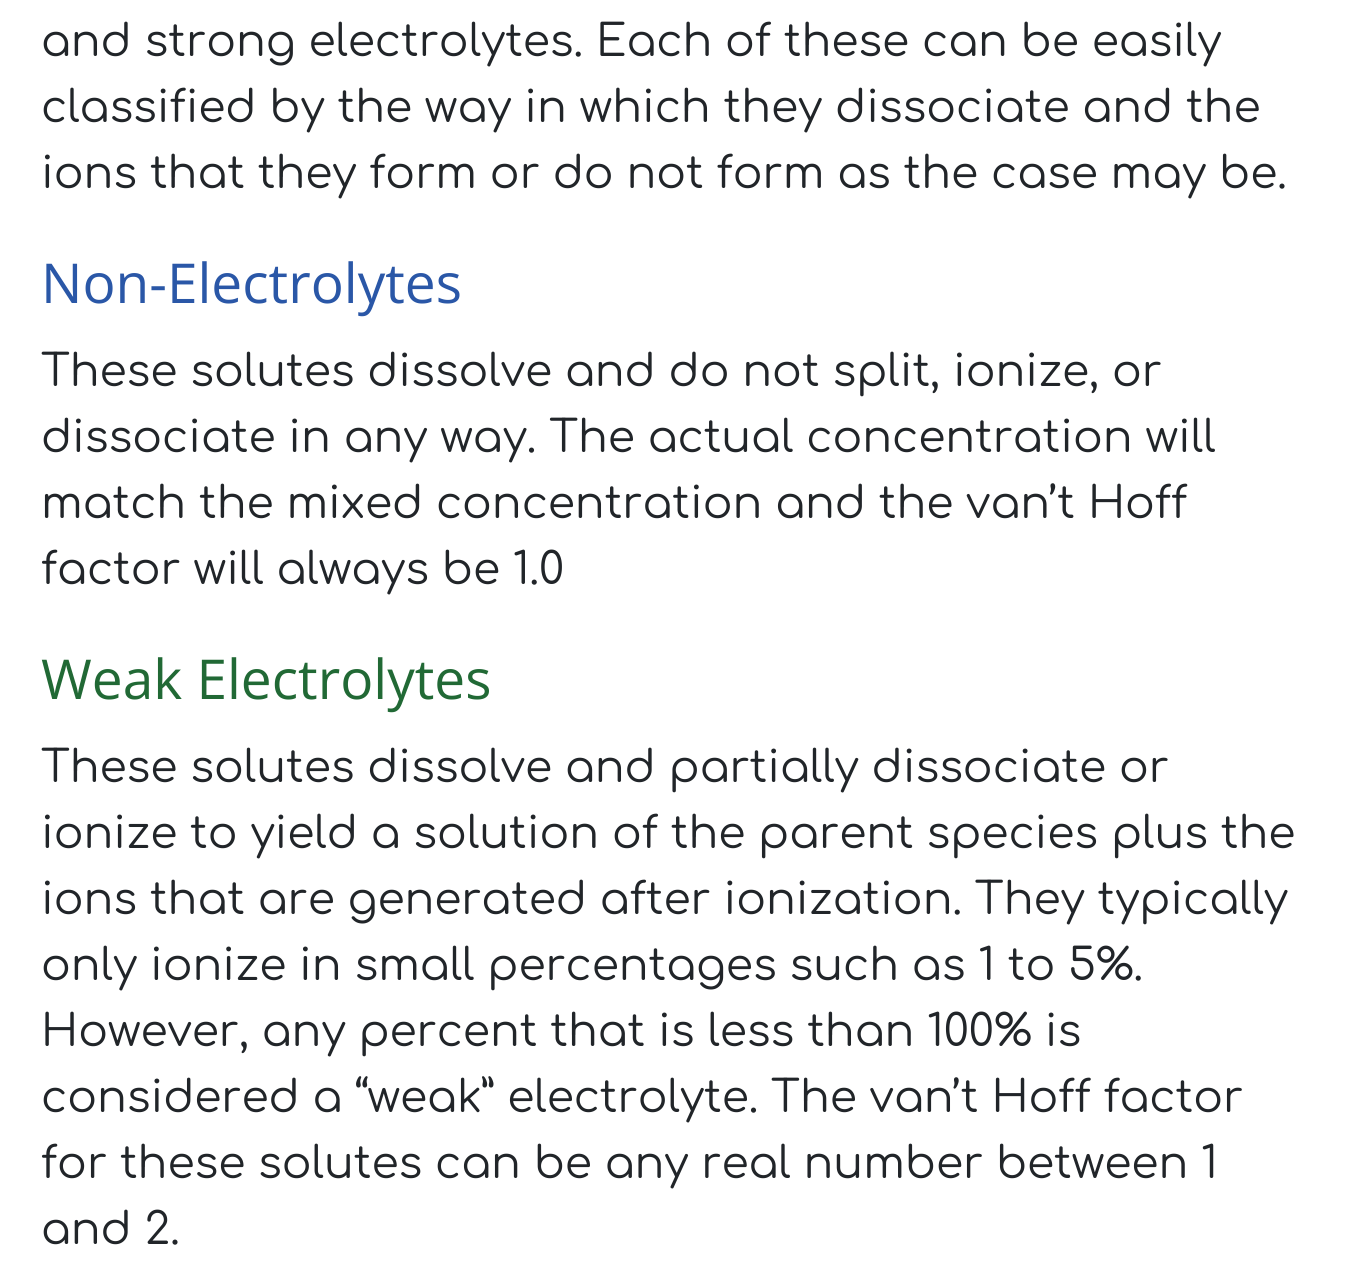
import math
import cairo

surface = cairo.ImageSurface(cairo.FORMAT_RGB24, 1345, 1288)
ctx = cairo.Context(surface)
options = cairo.FontOptions()
options.set_hint_metrics(cairo.HINT_METRICS_OFF)
options.set_hint_style(cairo.HINT_STYLE_NONE)
ctx.set_font_options(options)
ctx.set_miter_limit(4)


def set_color(code):
    ctx.set_source_rgb(*(v / 255 for v in bytes.fromhex(code[-6:])))


def draw_text(x, y, s, family, size, color, bold=False, italic=False):
    ctx.select_font_face(family, cairo.FONT_SLANT_ITALIC if italic else cairo.FONT_SLANT_NORMAL, cairo.FONT_WEIGHT_BOLD if bold else cairo.FONT_WEIGHT_NORMAL)
    ctx.set_font_size(size)
    set_color(color)
    ctx.move_to(x, y)
    ctx.show_text(s)


set_color("#ffffff")
ctx.paint()
draw_text(41, 56, "and strong electrolytes. Each of these can be easily", "Comfortaa", 44, "#212529")
draw_text(41, 122, "classified by the way in which they dissociate and the", "Comfortaa", 44, "#212529")
draw_text(41, 188, "ions that they form or do not form as the case may be.", "Comfortaa", 44, "#212529")
draw_text(41, 303, "Non-Electrolytes", "Open Sans", 55, "#2a57a7")
draw_text(41, 386, "These solutes dissolve and do not split, ionize, or", "Comfortaa", 44, "#212529")
draw_text(41, 452, "dissociate in any way. The actual concentration will", "Comfortaa", 44, "#212529")
draw_text(41, 518, "match the mixed concentration and the van’t Hoff", "Comfortaa", 44, "#212529")
draw_text(41, 584, "factor will always be 1.0", "Comfortaa", 44, "#212529")
draw_text(41, 699, "Weak Electrolytes", "Open Sans", 55, "#216935")
draw_text(41, 782, "These solutes dissolve and partially dissociate or", "Comfortaa", 44, "#212529")
draw_text(41, 848, "ionize to yield a solution of the parent species plus the", "Comfortaa", 44, "#212529")
draw_text(41, 914, "ions that are generated after ionization. They typically", "Comfortaa", 44, "#212529")
draw_text(41, 980, "only ionize in small percentages such as 1 to 5%.", "Comfortaa", 44, "#212529")
draw_text(41, 1046, "However, any percent that is less than 100% is", "Comfortaa", 44, "#212529")
draw_text(41, 1112, "considered a “weak” electrolyte. The van’t Hoff factor", "Comfortaa", 44, "#212529")
draw_text(41, 1178, "for these solutes can be any real number between 1", "Comfortaa", 44, "#212529")
draw_text(41, 1244, "and 2.", "Comfortaa", 44, "#212529")
surface.write_to_png("output.png")
